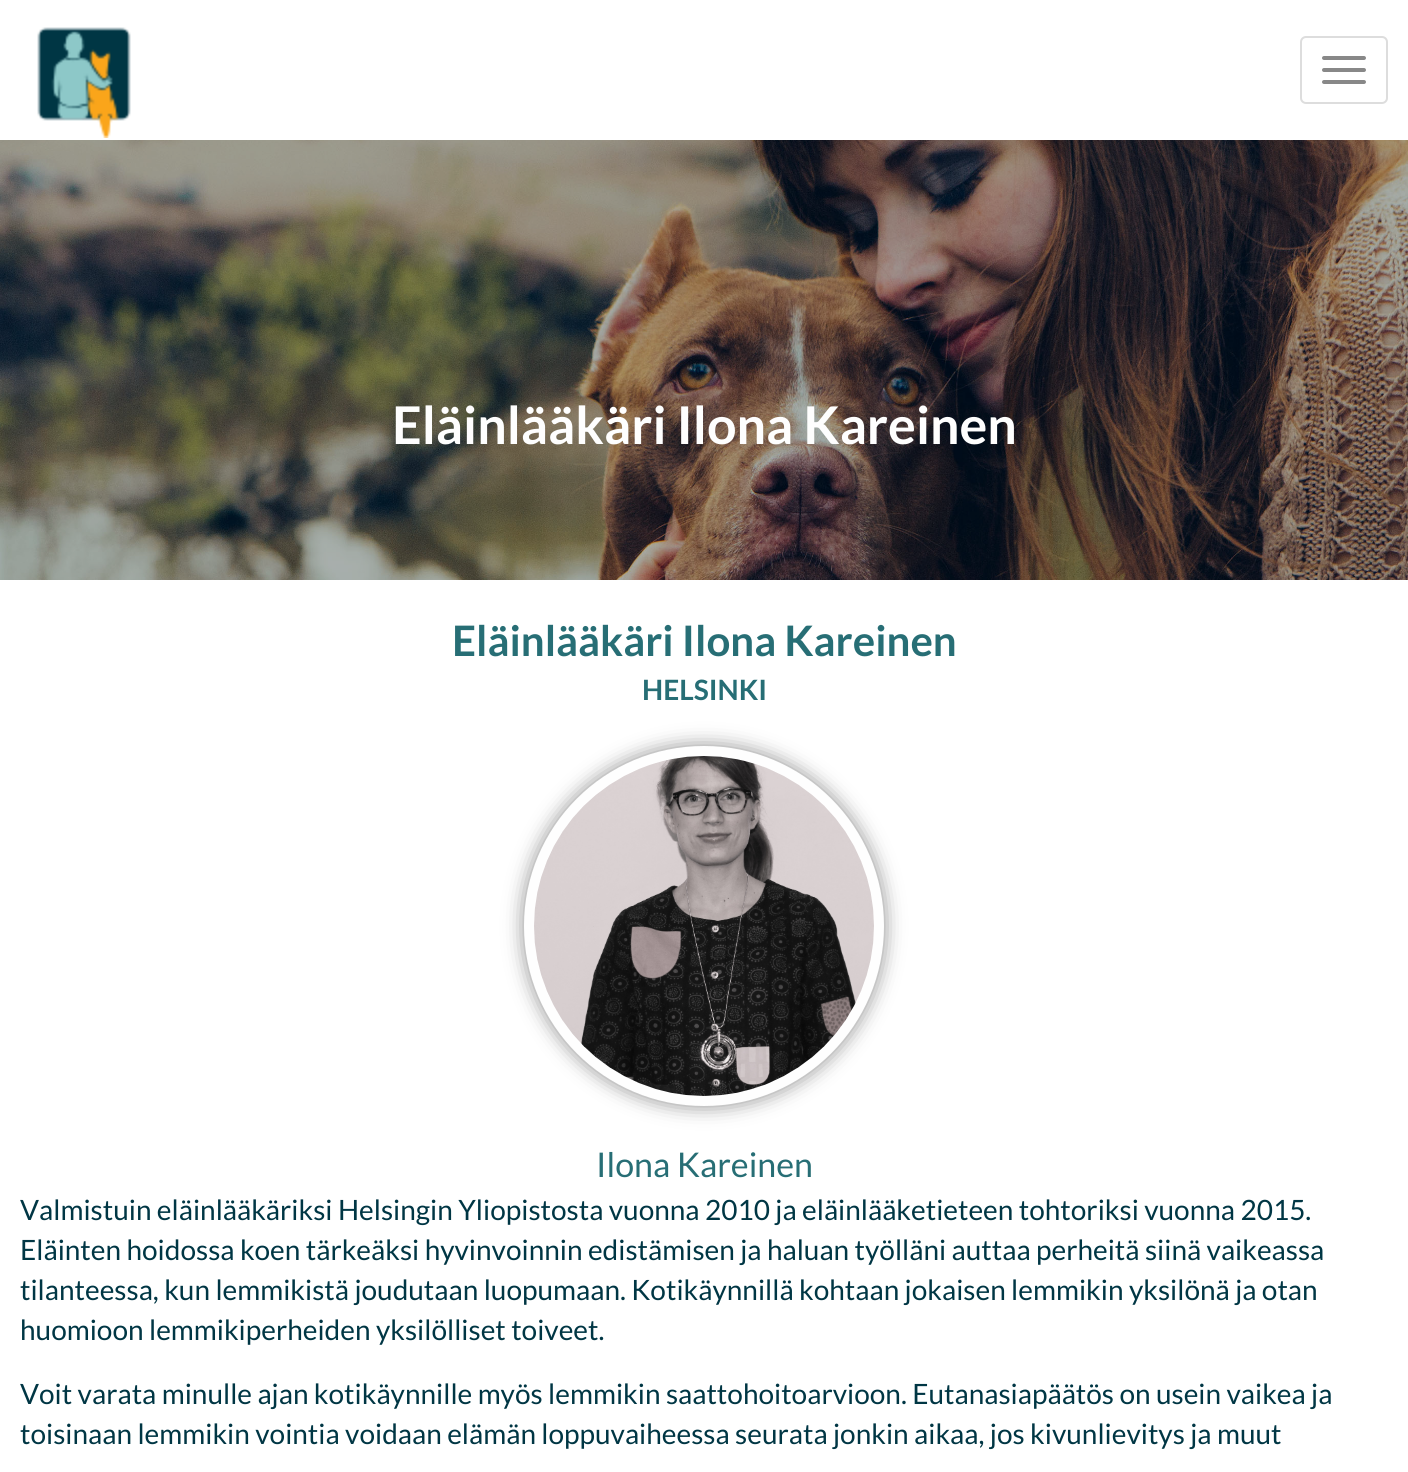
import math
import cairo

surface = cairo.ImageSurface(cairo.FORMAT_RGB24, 1408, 1472)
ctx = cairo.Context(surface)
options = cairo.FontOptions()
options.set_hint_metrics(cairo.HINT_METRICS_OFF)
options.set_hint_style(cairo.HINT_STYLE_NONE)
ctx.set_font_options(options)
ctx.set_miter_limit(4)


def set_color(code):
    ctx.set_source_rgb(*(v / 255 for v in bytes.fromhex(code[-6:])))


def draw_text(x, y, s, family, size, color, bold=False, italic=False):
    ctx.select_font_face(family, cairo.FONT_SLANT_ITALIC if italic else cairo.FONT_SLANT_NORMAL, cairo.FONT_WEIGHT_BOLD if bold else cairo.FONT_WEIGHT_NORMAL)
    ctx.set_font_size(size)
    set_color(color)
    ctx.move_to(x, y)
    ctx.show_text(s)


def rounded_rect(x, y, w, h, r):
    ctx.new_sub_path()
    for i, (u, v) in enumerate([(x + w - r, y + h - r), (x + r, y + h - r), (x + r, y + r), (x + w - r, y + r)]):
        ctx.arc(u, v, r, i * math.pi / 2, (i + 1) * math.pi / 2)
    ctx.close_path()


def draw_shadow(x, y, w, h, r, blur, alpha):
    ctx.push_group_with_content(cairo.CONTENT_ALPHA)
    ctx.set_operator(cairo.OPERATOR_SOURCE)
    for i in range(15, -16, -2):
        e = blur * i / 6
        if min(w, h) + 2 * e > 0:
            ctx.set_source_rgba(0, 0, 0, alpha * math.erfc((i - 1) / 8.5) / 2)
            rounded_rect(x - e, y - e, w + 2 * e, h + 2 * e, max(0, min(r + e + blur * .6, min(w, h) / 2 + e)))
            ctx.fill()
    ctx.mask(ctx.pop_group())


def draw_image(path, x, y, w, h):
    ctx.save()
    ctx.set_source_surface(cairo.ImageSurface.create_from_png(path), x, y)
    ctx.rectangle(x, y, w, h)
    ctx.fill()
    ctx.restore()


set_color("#ffffff")
ctx.paint()
draw_image("assets/img1.png", 37, 27, 94, 111)
rounded_rect(1301, 37, 86, 66, 5)
set_color("#dddddd")
ctx.stroke()
set_color("#888888")
rounded_rect(1322, 56, 44, 4, 2)
ctx.fill()
rounded_rect(1322, 68, 44, 4, 2)
ctx.fill()
rounded_rect(1322, 80, 44, 4, 2)
ctx.fill()
draw_image("assets/img2.png", 0, 140, 1408, 440)
draw_text(392, 444, "Eläinlääkäri Ilona Kareinen", "Lato", 52, "#fefefe", bold=True)
draw_text(452, 656, "Eläinlääkäri Ilona Kareinen", "Lato", 42, "#276e75", bold=True)
draw_text(642, 700, "HELSINKI", "Lato", 28, "#276e75", bold=True)
set_color("#8d8d8d")
draw_shadow(524, 746, 360, 360, 180, 10, 1)
set_color("#fefefe")
ctx.arc(704, 926, 180, 0, 2 * math.pi)
ctx.fill()
draw_image("assets/img3.png", 534, 756, 340, 340)
draw_text(596, 1177, "Ilona Kareinen", "Lato", 34, "#276e75")
draw_text(20, 1220, "Valmistuin eläinlääkäriksi Helsingin Yliopistosta vuonna 2010 ja eläinlääketieteen tohtoriksi vuonna 2015.", "Lato", 28, "#003644")
draw_text(20, 1260, "Eläinten hoidossa koen tärkeäksi hyvinvoinnin edistämisen ja haluan työlläni auttaa perheitä siinä vaikeassa", "Lato", 28, "#003644")
draw_text(20, 1300, "tilanteessa, kun lemmikistä joudutaan luopumaan. Kotikäynnillä kohtaan jokaisen lemmikin yksilönä ja otan", "Lato", 28, "#003644")
draw_text(20, 1340, "huomioon lemmikiperheiden yksilölliset toiveet.", "Lato", 28, "#003644")
draw_text(20, 1404, "Voit varata minulle ajan kotikäynnille myös lemmikin saattohoitoarvioon. Eutanasiapäätös on usein vaikea ja", "Lato", 28, "#003644")
draw_text(20, 1444, "toisinaan lemmikin vointia voidaan elämän loppuvaiheessa seurata jonkin aikaa, jos kivunlievitys ja muut", "Lato", 28, "#003644")
surface.write_to_png("output.png")
